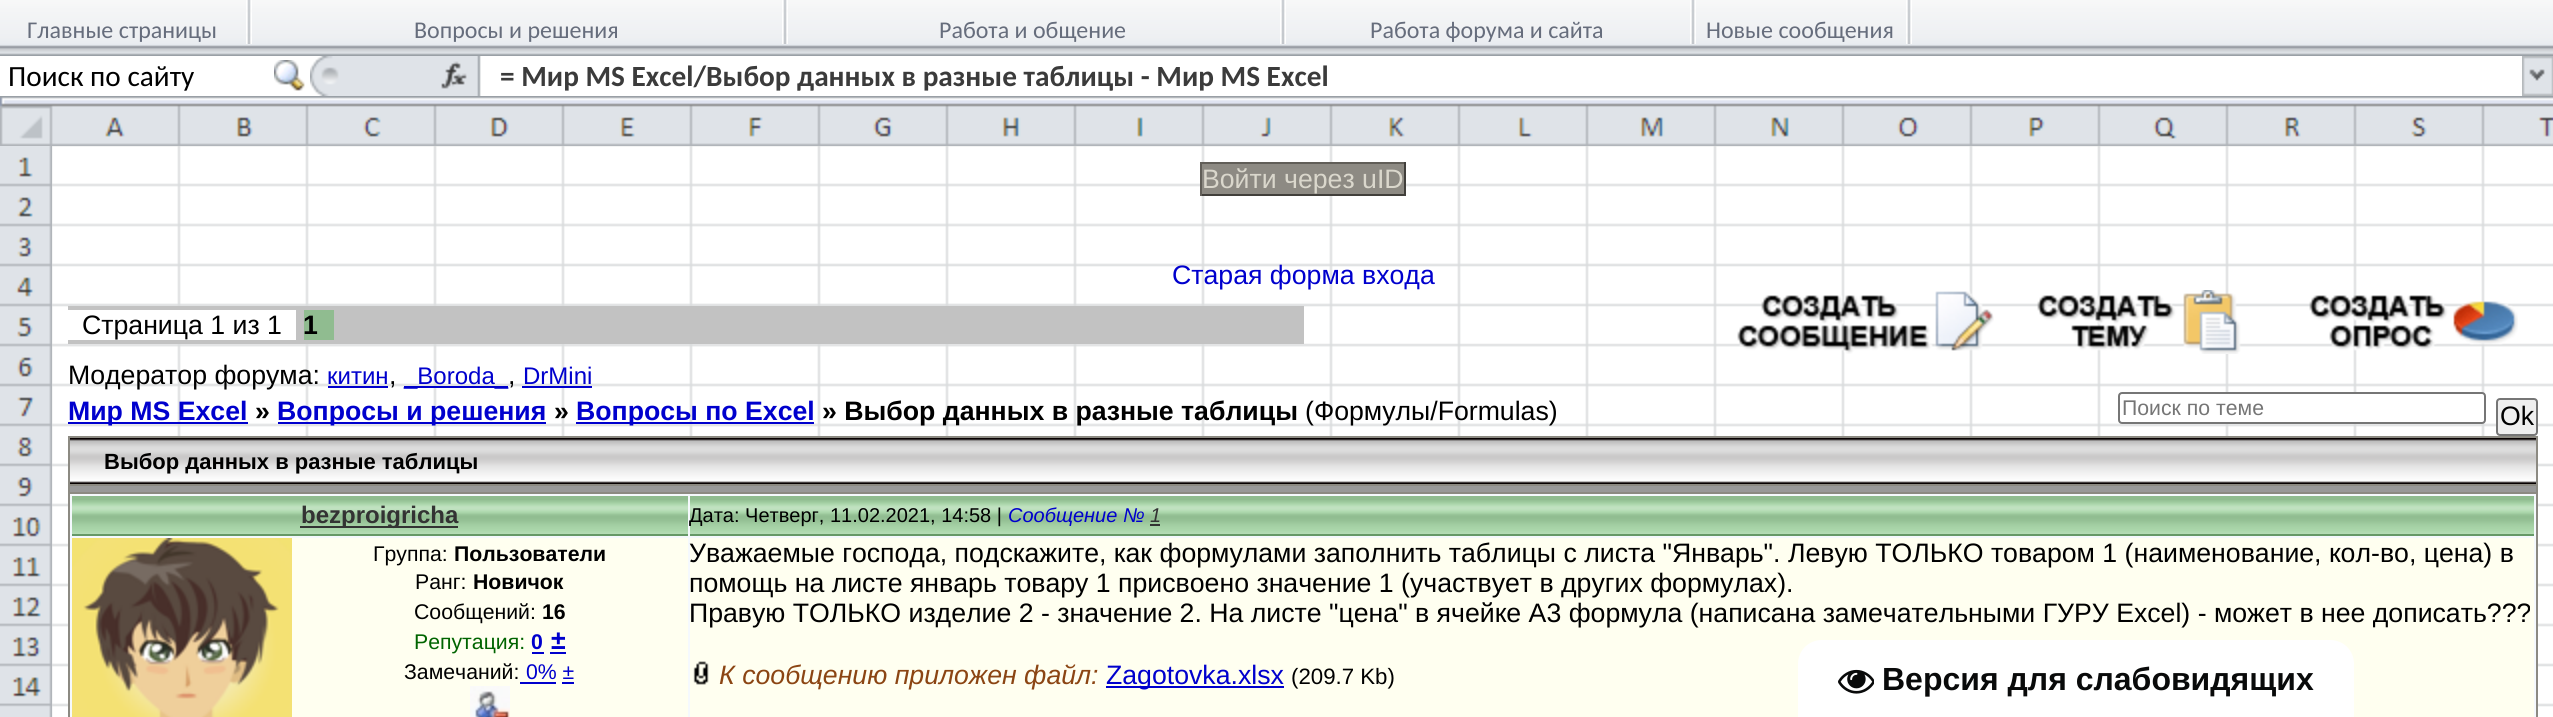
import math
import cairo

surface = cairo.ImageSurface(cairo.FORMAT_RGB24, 2553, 717)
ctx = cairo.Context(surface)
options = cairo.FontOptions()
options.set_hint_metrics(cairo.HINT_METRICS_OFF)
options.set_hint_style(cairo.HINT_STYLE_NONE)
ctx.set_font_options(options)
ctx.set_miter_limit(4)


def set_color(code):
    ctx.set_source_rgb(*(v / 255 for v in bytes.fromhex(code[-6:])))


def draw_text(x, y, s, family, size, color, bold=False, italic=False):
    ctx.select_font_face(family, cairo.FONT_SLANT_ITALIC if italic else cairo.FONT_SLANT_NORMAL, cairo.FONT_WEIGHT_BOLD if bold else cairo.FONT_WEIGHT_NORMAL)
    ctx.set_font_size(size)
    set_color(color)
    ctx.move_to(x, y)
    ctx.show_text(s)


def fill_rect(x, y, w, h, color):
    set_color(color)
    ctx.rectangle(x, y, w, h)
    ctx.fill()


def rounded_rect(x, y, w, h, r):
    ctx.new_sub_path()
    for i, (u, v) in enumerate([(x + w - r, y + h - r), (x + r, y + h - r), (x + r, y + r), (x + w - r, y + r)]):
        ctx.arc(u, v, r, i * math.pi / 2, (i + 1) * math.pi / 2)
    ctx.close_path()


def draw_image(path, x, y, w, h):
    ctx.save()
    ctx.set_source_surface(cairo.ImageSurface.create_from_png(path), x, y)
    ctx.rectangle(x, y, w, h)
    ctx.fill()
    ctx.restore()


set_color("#ffffff")
ctx.paint()
draw_image("assets/img1.png", 0, 0, 2553, 56)
draw_image("assets/img2.png", 246, 0, 6, 44)
draw_text(27, 38, "Главные страницы", "Carlito", 24, "#666d7c")
draw_image("assets/img2.png", 782, 0, 6, 44)
draw_text(414, 38, "Вопросы и решения", "Carlito", 24, "#666d7c")
draw_image("assets/img2.png", 1280, 0, 6, 44)
draw_text(939, 38, "Работа и общение", "Carlito", 24, "#666d7c")
draw_image("assets/img2.png", 1690, 0, 6, 44)
draw_text(1370, 38, "Работа форума и сайта", "Carlito", 24, "#666d7c")
draw_image("assets/img2.png", 1906, 0, 6, 44)
draw_text(1706, 38, "Новые сообщения", "Carlito", 24, "#666d7c")
draw_image("assets/img3.png", 310, 56, 171, 40)
draw_text(8, 86, "Поиск по сайту", "Carlito", 29.3, "#000000")
draw_image("assets/img4.png", 274, 60, 31, 31)
draw_text(500, 86, "= Мир MS Excel/Выбор данных в разные таблицы - Мир MS Excel", "Carlito", 29.3, "#3b3b3b", bold=True)
draw_image("assets/img5.png", 2522, 56, 31, 40)
draw_image("assets/img6.png", 0, 96, 2553, 50)
draw_image("assets/img7.png", 0, 146, 52, 571)
draw_image("assets/img8.png", 52, 146, 2501, 571)
fill_rect(1202, 164, 202, 30, "#8d8a83")
fill_rect(1200, 162, 206, 2, "#615e58")
fill_rect(1404, 162, 2, 34, "#413f3b")
fill_rect(1200, 194, 206, 2, "#413f3b")
fill_rect(1200, 162, 2, 34, "#615e58")
draw_text(1202, 188, "Войти через uID", "Liberation Sans", 26.67, "#dad7cc")
draw_text(1172, 284, "Старая форма входа", "Liberation Sans", 26.67, "#0000cd")
fill_rect(68, 306, 1236, 38, "#c2c2c2")
fill_rect(68, 310, 228, 30, "#ffffff")
draw_text(82, 334, "Страница 1 из 1", "Liberation Sans", 26.67, "#000000")
fill_rect(304, 310, 30, 30, "#90bc90")
draw_text(303, 334, "1", "Liberation Sans", 26.67, "#000000", bold=True)
draw_image("assets/img9.png", 1737, 291, 257, 63)
draw_image("assets/img10.png", 2037, 290, 204, 64)
draw_image("assets/img11.png", 2309, 295, 209, 56)
draw_text(68, 384, "Модератор форума:", "Liberation Sans", 26.67, "#000000")
draw_text(327, 384, "китин", "Liberation Sans", 24, "#0000cd")
draw_text(389, 384, ",", "Liberation Sans", 26.67, "#000000")
fill_rect(328, 386, 60, 2, "#0000cd")
fill_rect(404, 386, 104, 2, "#0000cd")
draw_text(404, 384, "_Boroda_", "Liberation Sans", 24, "#0000cd")
draw_text(508, 384, ",", "Liberation Sans", 26.67, "#000000")
fill_rect(522, 386, 70, 2, "#0000cd")
draw_text(523, 384, "DrMini", "Liberation Sans", 24, "#0000cd")
fill_rect(68, 422, 180, 2, "#0000cd")
draw_text(68, 420, "Мир MS Excel", "Liberation Sans", 26.67, "#0000cd", bold=True)
draw_text(255, 420, "»", "Liberation Sans", 26.67, "#000000", bold=True)
fill_rect(278, 422, 268, 2, "#0000cd")
draw_text(277, 420, "Вопросы и решения", "Liberation Sans", 26.67, "#0000cd", bold=True)
draw_text(554, 420, "»", "Liberation Sans", 26.67, "#000000", bold=True)
fill_rect(576, 422, 238, 2, "#0000cd")
draw_text(576, 420, "Вопросы по Excel", "Liberation Sans", 26.67, "#0000cd", bold=True)
draw_text(822, 420, "» Выбор данных в разные таблицы", "Liberation Sans", 26.67, "#000000", bold=True)
draw_text(1305, 420, "(Формулы/Formulas)", "Liberation Sans", 26.67, "#000000")
set_color("#ffffff")
rounded_rect(2119, 393, 366, 30, 3)
ctx.fill_preserve()
set_color("#767676")
ctx.stroke()
draw_text(2122, 415, "Поиск по теме", "Liberation Sans", 21.25, "#757575")
set_color("#efefef")
rounded_rect(2497, 399, 40, 36, 3)
ctx.fill_preserve()
set_color("#767676")
ctx.stroke()
draw_text(2500, 425, "Ok", "Liberation Sans", 26.67, "#000000")
fill_rect(68, 436, 2470, 281, "#8c8a82")
draw_image("assets/img12.png", 70, 438, 2466, 46)
draw_text(104, 469, "Выбор данных в разные таблицы", "Liberation Sans", 22, "#000000", bold=True)
fill_rect(70, 486, 2466, 6, "#999999")
fill_rect(70, 494, 2466, 223, "#f5f9fd")
fill_rect(72, 496, 616, 4, "#90bc90")
draw_image("assets/img13.png", 72, 500, 616, 34)
fill_rect(72, 534, 616, 2, "#669966")
fill_rect(300, 526, 158, 2, "#333333")
draw_text(301, 523, "bezproigricha", "Liberation Sans", 24, "#333333", bold=True)
fill_rect(690, 496, 1844, 4, "#90bc90")
draw_image("assets/img14.png", 690, 500, 1844, 34)
fill_rect(690, 534, 1844, 2, "#669966")
draw_text(689, 522, "Дата: Четверг, 11.02.2021, 14:58 |", "Liberation Sans", 20, "#000000")
draw_text(1008, 522, "Сообщение №", "Liberation Sans", 20, "#0000cd", italic=True)
draw_text(1150, 522, "1", "Liberation Sans", 20, "#333333", italic=True)
fill_rect(1150, 524, 10, 2, "#333333")
fill_rect(292, 538, 396, 179, "#fffff0")
draw_image("assets/img15.png", 72, 538, 220, 179)
draw_text(373, 561, "Группа:", "Liberation Sans", 21.25, "#000000")
draw_text(454, 561, "Пользователи", "Liberation Sans", 21.25, "#000000", bold=True)
draw_text(415, 589, "Ранг:", "Liberation Sans", 21.25, "#000000")
draw_text(473, 589, "Новичок", "Liberation Sans", 21.25, "#000000", bold=True)
draw_text(414, 619, "Сообщений:", "Liberation Sans", 21.25, "#000000")
draw_text(542, 619, "16", "Liberation Sans", 21.25, "#000000", bold=True)
draw_text(414, 649, "Репутация:", "Liberation Sans", 21.25, "#006400")
draw_text(531, 649, "0", "Liberation Sans", 21.25, "#0000cd", bold=True)
fill_rect(532, 652, 12, 2, "#0000cd")
draw_text(551, 649, "±", "Liberation Sans", 26.67, "#0000cd", bold=True)
fill_rect(550, 652, 16, 2, "#0000cd")
draw_text(404, 679, "Замечаний:", "Liberation Sans", 21.25, "#000000")
draw_text(526, 679, "0% ±", "Liberation Sans", 21.25, "#0000cd")
fill_rect(520, 682, 36, 2, "#0000cd")
fill_rect(562, 682, 12, 2, "#0000cd")
draw_image("assets/img16.png", 470, 686, 40, 31)
fill_rect(690, 538, 1844, 179, "#fffff0")
draw_text(689, 562, "Уважаемые господа, подскажите, как формулами заполнить таблицы с листа \"Январь\". Левую ТОЛЬКО товаром 1 (наименование, кол-во, цена) в", "Liberation Sans", 26.67, "#000000")
draw_text(689, 592, "помощь на листе январь товару 1 присвоено значение 1 (участвует в других формулах).", "Liberation Sans", 26.67, "#000000")
draw_text(689, 622, "Правую ТОЛЬКО изделие 2 - значение 2. На листе \"цена\" в ячейке А3 формула (написана замечательными ГУРУ Excel) - может в нее дописать???", "Liberation Sans", 26.67, "#000000")
draw_image("assets/img17.png", 693, 661, 16, 24)
draw_text(719, 684, "К сообщению приложен файл:", "Liberation Sans", 26.67, "#8b4513", italic=True)
fill_rect(1106, 686, 178, 2, "#0000cd")
draw_text(1106, 684, "Zagotovka.xlsx", "Liberation Sans", 26.67, "#0000cd")
draw_text(1291, 684, "(209.7 Kb)", "Liberation Sans", 22.25, "#000000")
set_color("#ffffff")
ctx.new_path()
ctx.move_to(1822, 640)
ctx.line_to(2330, 640)
ctx.curve_to(2343.5, 640, 2354, 650.5, 2354, 664)
ctx.line_to(2354, 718)
ctx.line_to(1798, 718)
ctx.line_to(1798, 664)
ctx.curve_to(1798, 650.5, 1808.5, 640, 1822, 640)
ctx.close_path()
ctx.fill()
draw_image("assets/img18.png", 1838, 669, 36, 25)
draw_text(1882, 690, "Версия для слабовидящих", "Liberation Sans", 32, "#090a0a", bold=True)
surface.write_to_png("output.png")
